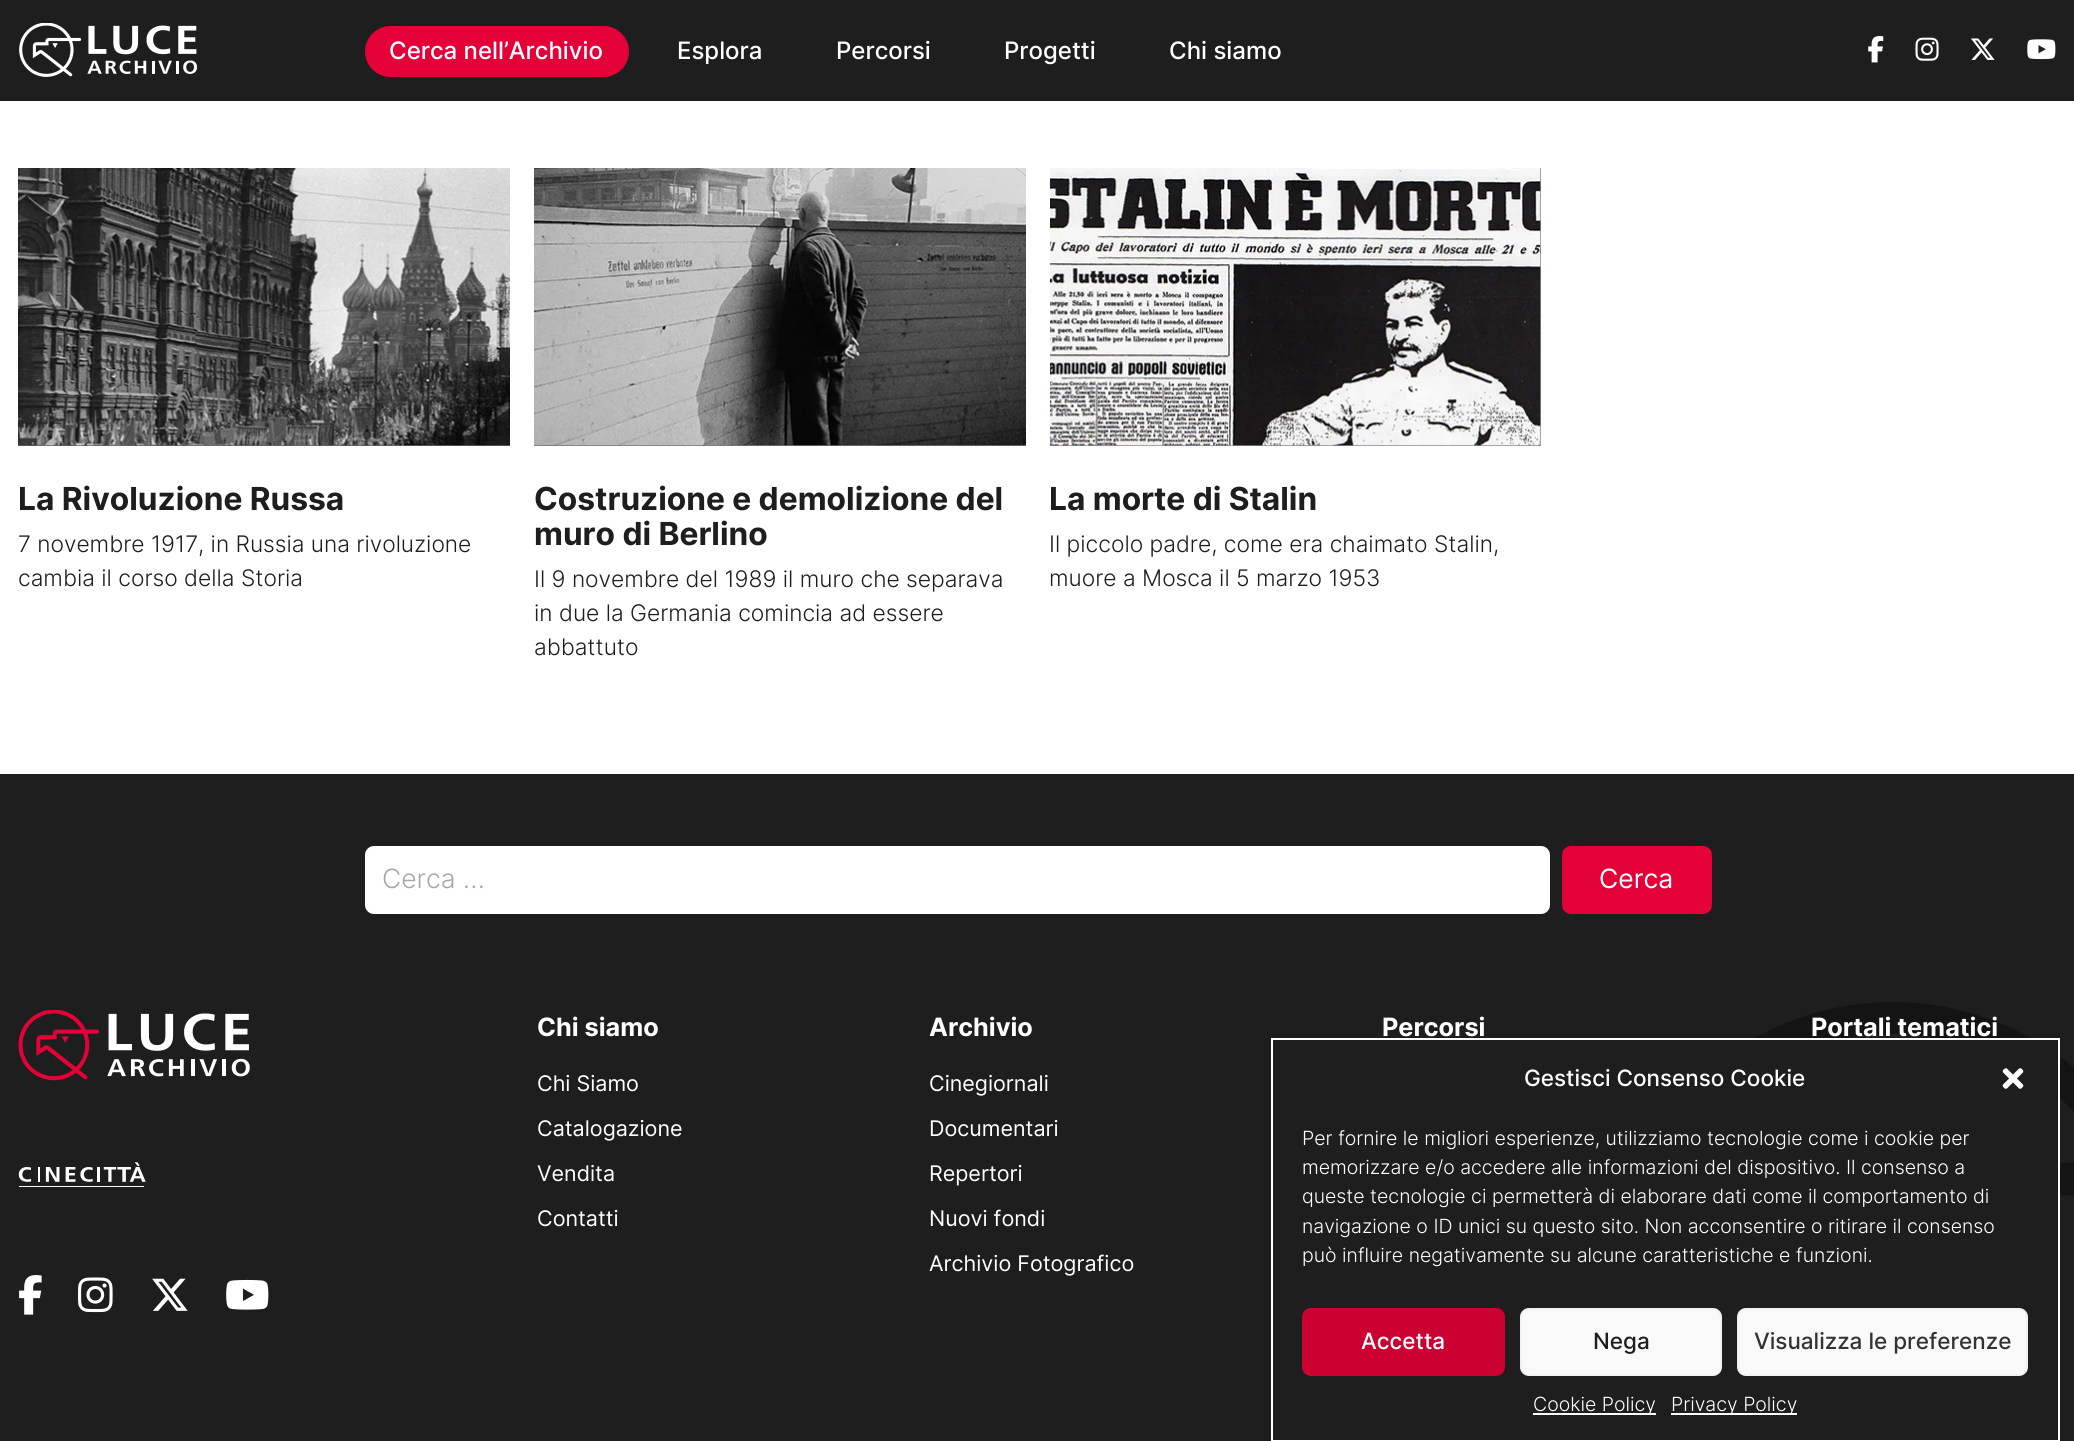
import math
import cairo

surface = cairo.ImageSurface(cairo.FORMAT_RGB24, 2074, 1441)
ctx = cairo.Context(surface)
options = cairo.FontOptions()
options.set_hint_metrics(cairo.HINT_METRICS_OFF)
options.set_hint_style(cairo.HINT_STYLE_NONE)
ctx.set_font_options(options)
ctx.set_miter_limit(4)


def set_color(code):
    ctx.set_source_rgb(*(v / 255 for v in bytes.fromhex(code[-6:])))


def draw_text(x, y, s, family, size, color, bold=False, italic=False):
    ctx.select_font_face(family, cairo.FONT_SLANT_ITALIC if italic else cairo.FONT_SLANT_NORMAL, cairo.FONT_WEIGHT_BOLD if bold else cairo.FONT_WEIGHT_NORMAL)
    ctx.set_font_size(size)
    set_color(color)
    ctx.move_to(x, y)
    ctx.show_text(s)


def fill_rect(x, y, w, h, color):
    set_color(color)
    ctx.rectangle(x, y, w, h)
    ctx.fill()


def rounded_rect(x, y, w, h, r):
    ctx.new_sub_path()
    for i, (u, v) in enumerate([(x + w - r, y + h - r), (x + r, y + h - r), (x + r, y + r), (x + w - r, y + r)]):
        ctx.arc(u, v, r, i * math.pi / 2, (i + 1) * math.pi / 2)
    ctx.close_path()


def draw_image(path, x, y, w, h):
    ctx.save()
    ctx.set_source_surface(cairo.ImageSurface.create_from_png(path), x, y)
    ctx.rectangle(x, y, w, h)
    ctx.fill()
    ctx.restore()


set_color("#ffffff")
ctx.paint()
fill_rect(0, 0, 2074, 101, "#1e1e1e")
draw_image("assets/img1.png", 19, 23, 178, 54)
set_color("#e40138")
rounded_rect(366, 27, 262, 49, 24.5)
ctx.fill_preserve()
ctx.stroke()
draw_text(389, 59, "Cerca nell’Archivio", "Inter Medium", 24, "#ffffff")
draw_text(677, 59, "Esplora", "Inter Medium", 24, "#ffffff")
draw_text(836, 59, "Percorsi", "Inter Medium", 24, "#ffffff")
draw_text(1004, 59, "Progetti", "Inter Medium", 24, "#ffffff")
draw_text(1169, 59, "Chi siamo", "Inter Medium", 24, "#ffffff")
draw_image("assets/img2.png", 1868, 36, 16, 27)
draw_image("assets/img3.png", 1915, 37, 24, 24)
draw_image("assets/img4.png", 1971, 38, 24, 22)
draw_image("assets/img5.png", 2027, 39, 29, 21)
fill_rect(18, 445, 492, 1, "#626262")
draw_image("assets/img6.png", 18, 168, 492, 278)
draw_text(18, 510, "La Rivoluzione Russa", "Inter", 31.7, "#1e1e1e", bold=True)
draw_text(18, 552, "7 novembre 1917, in Russia una rivoluzione", "Inter Light", 22.8, "#1e1e1e")
draw_text(18, 586, "cambia il corso della Storia", "Inter Light", 22.8, "#1e1e1e")
fill_rect(534, 445, 492, 1, "#767676")
draw_image("assets/img7.png", 534, 168, 492, 278)
draw_text(534, 510, "Costruzione e demolizione del", "Inter", 31.7, "#1e1e1e", bold=True)
draw_text(534, 545, "muro di Berlino", "Inter", 31.7, "#1e1e1e", bold=True)
draw_text(534, 587, "Il 9 novembre del 1989 il muro che separava", "Inter Light", 22.8, "#1e1e1e")
draw_text(534, 621, "in due la Germania comincia ad essere", "Inter Light", 22.8, "#1e1e1e")
draw_text(534, 655, "abbattuto", "Inter Light", 22.8, "#1e1e1e")
fill_rect(1050, 168, 491, 278, "#8a898a")
draw_image("assets/img8.png", 1050, 168, 491, 278)
draw_text(1049, 510, "La morte di Stalin", "Inter", 31.7, "#1e1e1e", bold=True)
draw_text(1049, 552, "Il piccolo padre, come era chaimato Stalin,", "Inter Light", 22.8, "#1e1e1e")
draw_text(1049, 586, "muore a Mosca il 5 marzo 1953", "Inter Light", 22.8, "#1e1e1e")
fill_rect(0, 774, 2074, 667, "#1e1e1e")
draw_image("assets/img9.png", 1754, 1002, 320, 194)
set_color("#ffffff")
rounded_rect(365, 846, 1185, 68, 9)
ctx.fill()
draw_text(382, 888, "Cerca …", "Inter Light", 26.5, "#a7a7a7")
set_color("#e40138")
rounded_rect(1563, 847, 148, 66, 8)
ctx.fill_preserve()
ctx.stroke()
draw_text(1599, 888, "Cerca", "Inter", 26.5, "#ffffff")
draw_image("assets/img10.png", 18, 1010, 232, 71)
draw_image("assets/img11.png", 18, 1162, 128, 25)
draw_image("assets/img12.png", 19, 1275, 23, 40)
draw_image("assets/img13.png", 78, 1277, 35, 36)
draw_image("assets/img14.png", 152, 1278, 36, 33)
draw_image("assets/img15.png", 226, 1279, 43, 31)
draw_text(537, 1036, "Chi siamo", "Inter", 25.25, "#ffffff", bold=True)
draw_text(537, 1091, "Chi Siamo", "Inter", 21.5, "#ffffff")
draw_text(537, 1136, "Catalogazione", "Inter", 21.5, "#ffffff")
draw_text(537, 1181, "Vendita", "Inter", 21.5, "#ffffff")
draw_text(537, 1226, "Contatti", "Inter", 21.5, "#ffffff")
draw_text(929, 1036, "Archivio", "Inter", 25.25, "#ffffff", bold=True)
draw_text(929, 1091, "Cinegiornali", "Inter", 21.5, "#ffffff")
draw_text(929, 1136, "Documentari", "Inter", 21.5, "#ffffff")
draw_text(929, 1181, "Repertori", "Inter", 21.5, "#ffffff")
draw_text(929, 1226, "Nuovi fondi", "Inter", 21.5, "#ffffff")
draw_text(929, 1271, "Archivio Fotografico", "Inter", 21.5, "#ffffff")
draw_text(1382, 1036, "Percorsi", "Inter", 25.25, "#ffffff", bold=True)
draw_text(1811, 1036, "Portali tematici", "Inter", 25.25, "#ffffff", bold=True)
fill_rect(1754, 1040, 304, 156, "#1e1e1e")
ctx.rectangle(1272, 1039, 787, 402)
set_color("#ffffff")
ctx.stroke()
draw_text(1524, 1086, "Gestisci Consenso Cookie", "Inter Medium", 22.5, "#ffffff")
draw_image("assets/img16.png", 2002, 1068, 22, 21)
draw_text(1302, 1145, "Per fornire le migliori esperienze, utilizziamo tecnologie come i cookie per", "Inter Light", 19.5, "#ffffff")
draw_text(1302, 1174, "memorizzare e/o accedere alle informazioni del dispositivo. Il consenso a", "Inter Light", 19.5, "#ffffff")
draw_text(1302, 1203, "queste tecnologie ci permetterà di elaborare dati come il comportamento di", "Inter Light", 19.5, "#ffffff")
draw_text(1302, 1233, "navigazione o ID unici su questo sito. Non acconsentire o ritirare il consenso", "Inter Light", 19.5, "#ffffff")
draw_text(1302, 1262, "può influire negativamente su alcune caratteristiche e funzioni.", "Inter Light", 19.5, "#ffffff")
set_color("#cb0132")
rounded_rect(1303, 1309, 201, 66, 8)
ctx.fill_preserve()
ctx.stroke()
draw_text(1361, 1349, "Accetta", "Inter Medium", 22.5, "#ffffff")
set_color("#f9f9f9")
rounded_rect(1521, 1309, 200, 66, 8)
ctx.fill_preserve()
set_color("#f2f2f2")
ctx.stroke()
draw_text(1593, 1349, "Nega", "Inter Medium", 22.5, "#1e1e1e")
set_color("#f9f9f9")
rounded_rect(1738, 1309, 289, 66, 8)
ctx.fill_preserve()
set_color("#f2f2f2")
ctx.stroke()
draw_text(1754, 1349, "Visualizza le preferenze", "Inter Medium", 22.5, "#333333")
fill_rect(1533, 1413, 123, 2, "#ffffff")
draw_text(1533, 1411, "Cookie Policy", "Inter Light", 19.5, "#ffffff")
fill_rect(1671, 1413, 126, 2, "#ffffff")
draw_text(1671, 1411, "Privacy Policy", "Inter Light", 19.5, "#ffffff")
surface.write_to_png("output.png")
